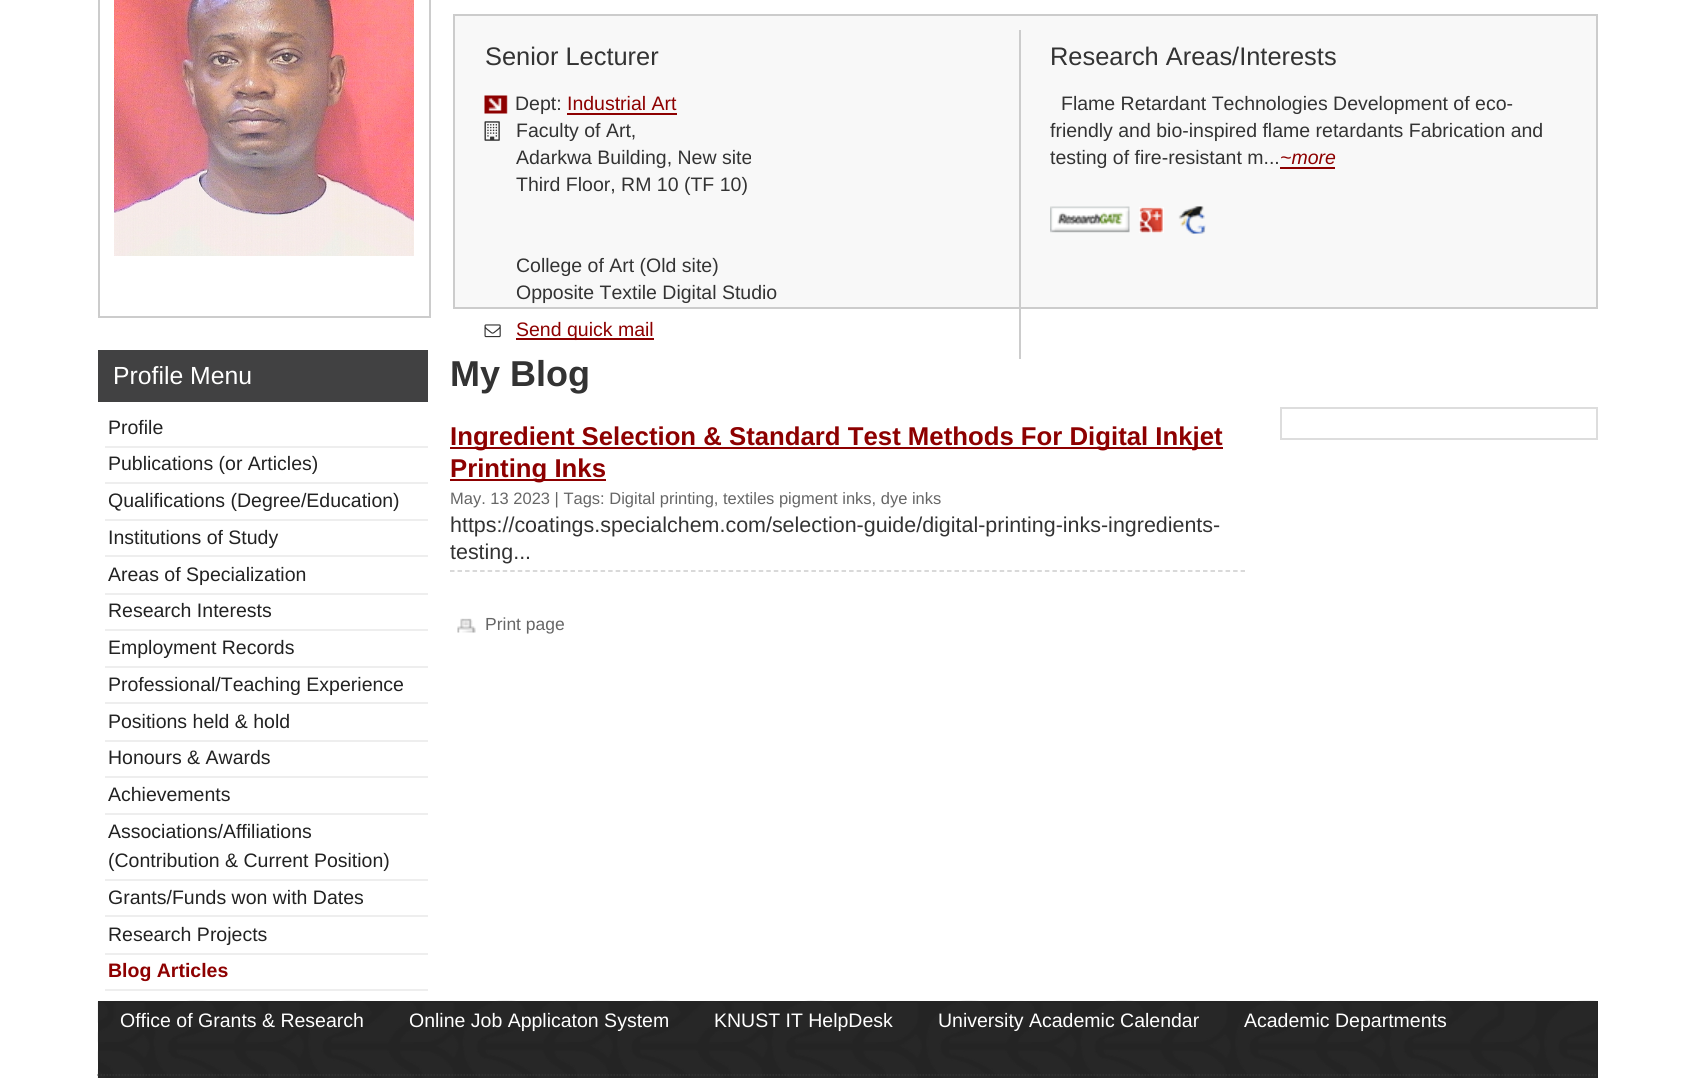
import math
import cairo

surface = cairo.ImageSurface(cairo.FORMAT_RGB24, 1695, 1078)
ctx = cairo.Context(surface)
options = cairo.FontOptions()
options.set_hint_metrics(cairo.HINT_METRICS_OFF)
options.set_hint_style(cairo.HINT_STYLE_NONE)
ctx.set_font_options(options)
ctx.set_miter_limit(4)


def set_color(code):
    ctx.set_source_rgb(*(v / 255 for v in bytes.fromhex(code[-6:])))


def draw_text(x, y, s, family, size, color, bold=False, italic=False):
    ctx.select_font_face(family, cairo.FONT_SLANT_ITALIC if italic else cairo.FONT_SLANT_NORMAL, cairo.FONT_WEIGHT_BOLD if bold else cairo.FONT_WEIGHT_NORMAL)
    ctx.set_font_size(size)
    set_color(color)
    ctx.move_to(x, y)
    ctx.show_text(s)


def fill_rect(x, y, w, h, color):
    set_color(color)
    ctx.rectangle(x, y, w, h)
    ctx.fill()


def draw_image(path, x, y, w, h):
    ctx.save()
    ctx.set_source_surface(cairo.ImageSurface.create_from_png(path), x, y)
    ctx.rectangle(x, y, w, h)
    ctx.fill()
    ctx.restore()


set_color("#ffffff")
ctx.paint()
ctx.rectangle(99, -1, 331, 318)
set_color("#cccccc")
ctx.stroke()
draw_image("assets/img1.png", 114, 0, 300, 256)
set_color("#f8f8f8")
ctx.rectangle(454, 15, 1143, 293)
ctx.fill_preserve()
set_color("#cccccc")
ctx.stroke()
fill_rect(1019, 30, 2, 329, "#cccccc")
draw_text(485, 65, "Senior Lecturer", "Liberation Sans", 25.4, "#333333")
draw_image("assets/img2.png", 484, 95, 24, 19)
draw_text(515, 110, "Dept:", "Liberation Sans", 19.5, "#333333")
draw_text(567, 110, "Industrial Art", "Liberation Sans", 19.5, "#8d0000")
fill_rect(567, 113, 110, 2, "#8d0000")
draw_image("assets/img3.png", 484, 121, 16, 20)
draw_text(516, 137, "Faculty of Art,", "Liberation Sans", 19.5, "#333333")
draw_text(516, 164, "Adarkwa Building, New site", "Liberation Sans", 19.5, "#333333")
draw_text(516, 191, "Third Floor, RM 10 (TF 10)", "Liberation Sans", 19.5, "#333333")
draw_text(516, 272, "College of Art (Old site)", "Liberation Sans", 19.5, "#333333")
draw_text(516, 299, "Opposite Textile Digital Studio", "Liberation Sans", 19.5, "#333333")
draw_image("assets/img4.png", 484, 324, 17, 14)
fill_rect(516, 338, 138, 2, "#8d0000")
draw_text(516, 336, "Send quick mail", "Liberation Sans", 19.5, "#8d0000")
draw_text(1050, 65, "Research Areas/Interests", "Liberation Sans", 25.4, "#333333")
draw_text(1061, 110, "Flame Retardant Technologies Development of eco-", "Liberation Sans", 19.5, "#333333")
draw_text(1050, 137, "friendly and bio-inspired flame retardants Fabrication and", "Liberation Sans", 19.5, "#333333")
draw_text(1050, 164, "testing of fire-resistant m...", "Liberation Sans", 19.5, "#333333")
draw_text(1280, 164, "~more", "Liberation Sans", 19.5, "#8d0000", italic=True)
fill_rect(1280, 167, 55, 2, "#8d0000")
draw_image("assets/img5.png", 1050, 206, 80, 27)
draw_image("assets/img6.png", 1139, 207, 25, 26)
draw_image("assets/img7.png", 1178, 206, 28, 28)
fill_rect(98, 350, 330, 52, "#414142")
draw_text(113, 384, "Profile Menu", "Liberation Sans", 24.75, "#ffffff")
fill_rect(105, 446, 323, 2, "#eeeeee")
draw_text(108, 434, "Profile", "Liberation Sans", 19.5, "#222222")
fill_rect(105, 482, 323, 2, "#eeeeee")
draw_text(108, 470, "Publications (or Articles)", "Liberation Sans", 19.5, "#222222")
fill_rect(105, 519, 323, 2, "#eeeeee")
draw_text(108, 507, "Qualifications (Degree/Education)", "Liberation Sans", 19.5, "#222222")
fill_rect(105, 555, 323, 2, "#eeeeee")
draw_text(108, 544, "Institutions of Study", "Liberation Sans", 19.5, "#222222")
fill_rect(105, 593, 323, 2, "#eeeeee")
draw_text(108, 581, "Areas of Specialization", "Liberation Sans", 19.5, "#222222")
fill_rect(105, 629, 323, 2, "#eeeeee")
draw_text(108, 617, "Research Interests", "Liberation Sans", 19.5, "#222222")
fill_rect(105, 666, 323, 2, "#eeeeee")
draw_text(108, 654, "Employment Records", "Liberation Sans", 19.5, "#222222")
fill_rect(105, 702, 323, 2, "#eeeeee")
draw_text(108, 691, "Professional/Teaching Experience", "Liberation Sans", 19.5, "#222222")
fill_rect(105, 740, 323, 2, "#eeeeee")
draw_text(108, 728, "Positions held & hold", "Liberation Sans", 19.5, "#222222")
fill_rect(105, 776, 323, 2, "#eeeeee")
draw_text(108, 764, "Honours & Awards", "Liberation Sans", 19.5, "#222222")
fill_rect(105, 813, 323, 2, "#eeeeee")
draw_text(108, 801, "Achievements", "Liberation Sans", 19.5, "#222222")
fill_rect(105, 879, 323, 2, "#eeeeee")
draw_text(108, 838, "Associations/Affiliations", "Liberation Sans", 19.5, "#222222")
draw_text(108, 867, "(Contribution & Current Position)", "Liberation Sans", 19.5, "#222222")
fill_rect(105, 915, 323, 2, "#eeeeee")
draw_text(108, 904, "Grants/Funds won with Dates", "Liberation Sans", 19.5, "#222222")
fill_rect(105, 953, 323, 2, "#eeeeee")
draw_text(108, 941, "Research Projects", "Liberation Sans", 19.5, "#222222")
fill_rect(105, 989, 323, 2, "#eeeeee")
draw_text(108, 977, "Blog Articles", "Liberation Sans", 19.5, "#8d0000", bold=True)
draw_text(450, 386, "My Blog", "Liberation Sans", 36, "#333333", bold=True)
ctx.new_path()
ctx.move_to(450, 571)
ctx.line_to(1245, 571)
set_color("#cccccc")
ctx.set_line_width(1.5)
ctx.set_dash([4.5, 3.03])
ctx.stroke()
fill_rect(450, 447, 773, 2, "#8d0000")
draw_text(450, 445, "Ingredient Selection & Standard Test Methods For Digital Inkjet", "Liberation Sans", 25.75, "#8d0000", bold=True)
fill_rect(450, 479, 156, 2, "#8d0000")
draw_text(450, 477, "Printing Inks", "Liberation Sans", 25.75, "#8d0000", bold=True)
draw_text(450, 504, "May. 13 2023 | Tags: Digital printing, textiles pigment inks, dye inks", "Liberation Sans", 16.5, "#666666")
draw_text(450, 532, "https://coatings.specialchem.com/selection-guide/digital-printing-inks-ingredients-", "Liberation Sans", 21.45, "#333333")
draw_text(450, 559, "testing...", "Liberation Sans", 21.45, "#333333")
ctx.rectangle(1281, 408, 316, 31)
set_color("#dddddd")
ctx.set_line_width(2)
ctx.set_dash([])
ctx.stroke()
draw_image("assets/img8.png", 457, 618, 19, 15)
draw_text(485, 630, "Print page", "Liberation Sans", 17.5, "#666666")
fill_rect(98, 1001, 1500, 77, "#242424")
draw_image("assets/img9.png", 97, 1000, 1500, 78)
draw_text(120, 1027, "Office of Grants & Research", "Liberation Sans", 19.5, "#ffffff")
draw_text(409, 1027, "Online Job Applicaton System", "Liberation Sans", 19.5, "#ffffff")
draw_text(714, 1027, "KNUST IT HelpDesk", "Liberation Sans", 19.5, "#ffffff")
draw_text(938, 1027, "University Academic Calendar", "Liberation Sans", 19.5, "#ffffff")
draw_text(1244, 1027, "Academic Departments", "Liberation Sans", 19.5, "#ffffff")
ctx.new_path()
ctx.move_to(97.5, 1075)
ctx.line_to(1597.5, 1075)
set_color("#333333")
ctx.set_line_width(1.5)
ctx.set_dash([1.5, 1.5])
ctx.stroke()
surface.write_to_png("output.png")
